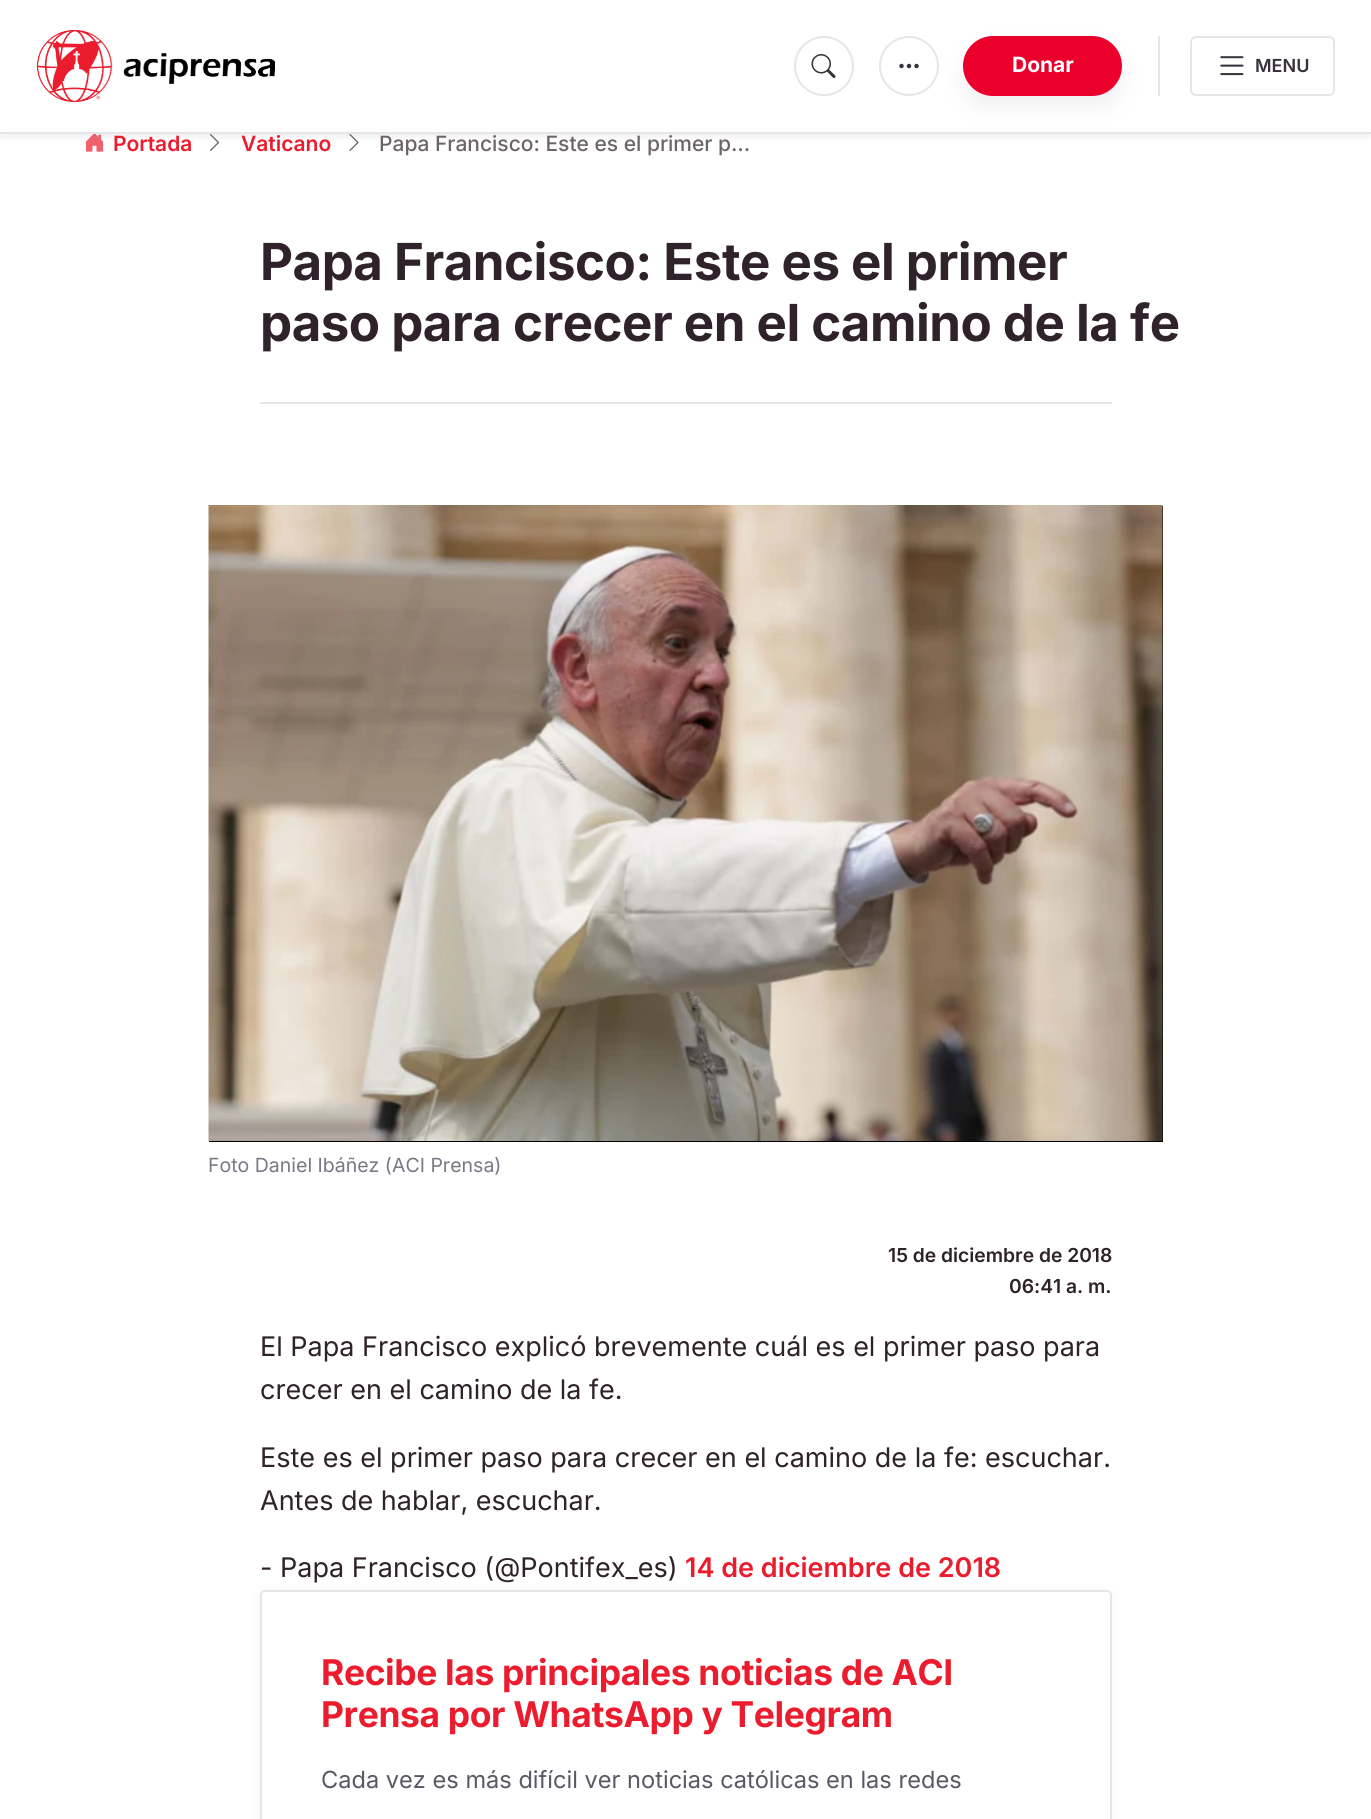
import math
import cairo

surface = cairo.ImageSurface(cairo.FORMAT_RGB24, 1371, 1819)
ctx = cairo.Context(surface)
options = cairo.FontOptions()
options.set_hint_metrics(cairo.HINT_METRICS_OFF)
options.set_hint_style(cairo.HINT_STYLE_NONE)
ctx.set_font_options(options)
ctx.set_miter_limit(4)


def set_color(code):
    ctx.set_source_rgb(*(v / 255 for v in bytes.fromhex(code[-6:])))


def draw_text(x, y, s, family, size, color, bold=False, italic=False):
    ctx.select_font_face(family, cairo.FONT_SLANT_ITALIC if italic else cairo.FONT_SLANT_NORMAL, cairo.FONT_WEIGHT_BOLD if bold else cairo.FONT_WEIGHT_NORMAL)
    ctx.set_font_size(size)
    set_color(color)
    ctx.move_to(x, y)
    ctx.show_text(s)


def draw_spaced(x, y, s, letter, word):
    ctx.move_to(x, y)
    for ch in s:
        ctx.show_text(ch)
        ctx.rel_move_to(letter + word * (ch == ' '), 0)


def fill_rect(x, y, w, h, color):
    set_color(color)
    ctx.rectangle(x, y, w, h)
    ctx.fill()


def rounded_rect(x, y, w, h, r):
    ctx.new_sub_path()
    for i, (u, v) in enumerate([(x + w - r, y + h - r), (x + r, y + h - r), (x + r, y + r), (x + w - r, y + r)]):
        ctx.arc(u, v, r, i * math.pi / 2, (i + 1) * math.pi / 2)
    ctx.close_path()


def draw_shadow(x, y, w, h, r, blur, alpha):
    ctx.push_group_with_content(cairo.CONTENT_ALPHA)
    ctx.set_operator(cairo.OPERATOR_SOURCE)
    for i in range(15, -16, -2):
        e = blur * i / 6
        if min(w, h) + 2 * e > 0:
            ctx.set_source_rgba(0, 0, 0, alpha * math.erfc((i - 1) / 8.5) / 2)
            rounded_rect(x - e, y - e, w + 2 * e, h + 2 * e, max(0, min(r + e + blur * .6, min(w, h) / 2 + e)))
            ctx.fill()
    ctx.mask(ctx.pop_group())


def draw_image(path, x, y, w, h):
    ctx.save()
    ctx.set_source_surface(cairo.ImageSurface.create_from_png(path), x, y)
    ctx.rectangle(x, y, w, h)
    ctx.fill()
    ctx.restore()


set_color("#ffffff")
ctx.paint()
draw_image("assets/img5.png", 85, 134, 19, 18)
draw_image("assets/img6.png", 209, 134, 11, 17)
draw_image("assets/img7.png", 349, 134, 10, 17)
set_color("#38323c")
draw_shadow(0, 3, 1371, 134, 0, 3, 0.08)
fill_rect(0, 0, 1371, 132, "#ffffff")
fill_rect(0, 132, 1371, 2, "#e7e5e9")
draw_image("assets/img1.png", 36, 30, 239, 72)
ctx.arc(824, 66, 29, 0, 2 * math.pi)
ctx.stroke()
draw_image("assets/img2.png", 811, 54, 25, 24)
set_color("#000000")
draw_shadow(972, 57, 141, 42, 21, 15, 0.1)
ctx.arc(909, 66, 29, 0, 2 * math.pi)
set_color("#e7e5e9")
ctx.stroke()
draw_image("assets/img3.png", 899, 63, 20, 6)
set_color("#ea002a")
rounded_rect(963, 36, 159, 60, 30)
ctx.fill()
draw_text(1012, 72, "Donar", "Inter", 21, "#ffffff", bold=True)
fill_rect(1158, 36, 2, 60, "#e7e5e9")
rounded_rect(1191, 37, 143, 58, 5)
ctx.stroke()
draw_image("assets/img4.png", 1220, 56, 24, 20)
draw_text(1255, 72, "MENU", "Inter SemiBold", 18, "#38323c")
draw_text(113, 151, "Portada", "Inter SemiBold", 21, "#ea1c2d")
draw_text(241, 151, "Vaticano", "Inter SemiBold", 21, "#ea1c2d")
draw_text(379, 151, "Papa Francisco: Este es el primer p…", "Inter Medium", 21, "#6d646a")
ctx.select_font_face("Inter", cairo.FONT_SLANT_NORMAL, cairo.FONT_WEIGHT_BOLD)
ctx.set_font_size(51)
set_color("#2f222a")
draw_spaced(260, 280, "Papa Francisco: Este es el primer", -0.5, 0)
draw_spaced(260, 341, "paso para crecer en el camino de la fe", -0.5, 0)
fill_rect(260, 402, 852, 2, "#e7e5e9")
fill_rect(209, 506, 954, 636, "#000000")
draw_image("assets/img8.png", 208, 505, 955, 636)
draw_text(208, 1172, "Foto Daniel Ibáñez (ACI Prensa)", "Inter", 19.5, "#797885")
draw_text(888, 1262, "15 de diciembre de 2018", "Inter SemiBold", 19.25, "#2f222a")
draw_text(1009, 1293, "06:41 a. m.", "Inter SemiBold", 19.25, "#2f222a")
draw_text(260, 1356, "El Papa Francisco explicó brevemente cuál es el primer paso para", "Inter", 27, "#2f222a")
draw_text(260, 1399, "crecer en el camino de la fe.", "Inter", 27, "#2f222a")
draw_text(260, 1467, "Este es el primer paso para crecer en el camino de la fe: escuchar.", "Inter", 27, "#2f222a")
draw_text(260, 1510, "Antes de hablar, escuchar.", "Inter", 27, "#2f222a")
set_color("#000000")
draw_shadow(260, 1593, 852, 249, 5, 6, 0.05)
draw_text(260, 1577, "- Papa Francisco (@Pontifex_es)", "Inter", 27, "#2f222a")
draw_text(685, 1577, "14 de diciembre de 2018", "Inter SemiBold", 27, "#ea1c2d")
set_color("#ffffff")
rounded_rect(261, 1591, 850, 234, 4)
ctx.fill_preserve()
set_color("#e7e5e9")
ctx.stroke()
ctx.select_font_face("Inter", cairo.FONT_SLANT_NORMAL, cairo.FONT_WEIGHT_BOLD)
ctx.set_font_size(35.4)
set_color("#ea1c2d")
draw_spaced(321, 1685, "Recibe las principales noticias de ACI", -0.35, 0)
draw_spaced(321, 1727, "Prensa por WhatsApp y Telegram", -0.35, 0)
draw_text(321, 1788, "Cada vez es más difícil ver noticias católicas en las redes", "Inter", 23.6, "#5b5764")
surface.write_to_png("output.png")
